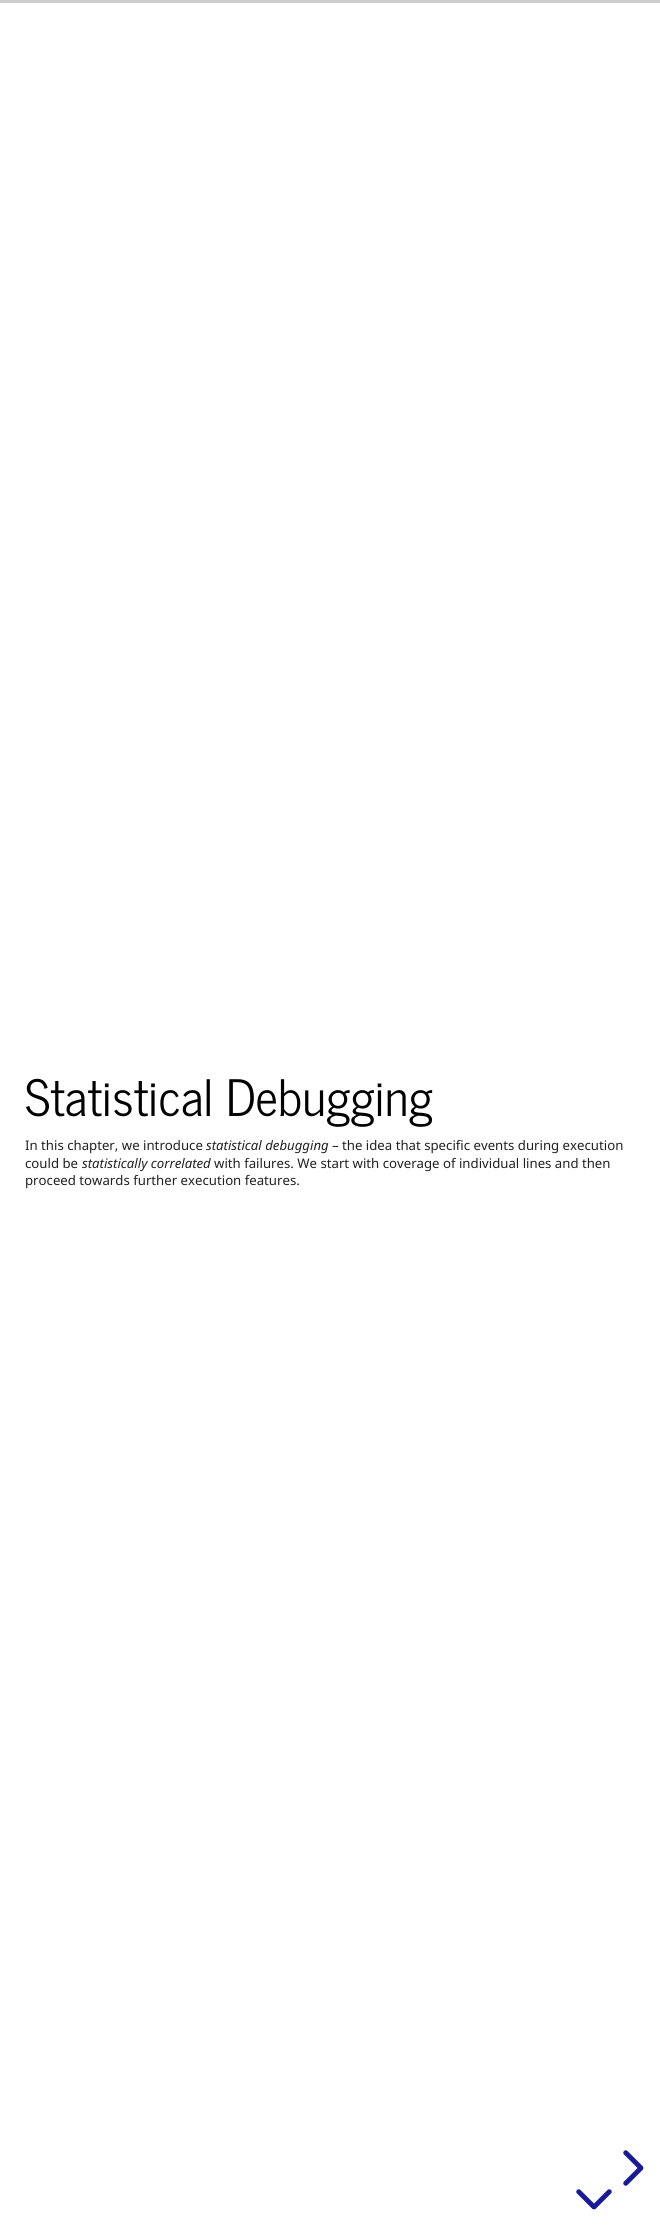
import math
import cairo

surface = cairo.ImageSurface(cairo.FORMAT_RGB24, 660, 2230)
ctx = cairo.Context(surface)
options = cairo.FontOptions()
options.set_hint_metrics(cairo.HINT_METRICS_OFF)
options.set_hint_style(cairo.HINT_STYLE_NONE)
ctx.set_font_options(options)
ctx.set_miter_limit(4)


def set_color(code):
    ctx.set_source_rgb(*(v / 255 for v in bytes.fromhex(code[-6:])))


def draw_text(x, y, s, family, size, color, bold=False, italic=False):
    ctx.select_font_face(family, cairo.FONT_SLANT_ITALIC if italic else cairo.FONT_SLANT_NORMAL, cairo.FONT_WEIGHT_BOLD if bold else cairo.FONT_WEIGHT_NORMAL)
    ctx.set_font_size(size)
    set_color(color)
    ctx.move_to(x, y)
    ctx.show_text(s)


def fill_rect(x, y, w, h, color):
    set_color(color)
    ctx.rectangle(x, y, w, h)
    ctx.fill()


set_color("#ffffff")
ctx.paint()
fill_rect(0, 0, 660, 3, "#cccccc")
draw_text(25, 1116, "Statistical Debugging", "News Cycle", 49.75, "#000000")
draw_text(25, 1150, "In this chapter, we introduce", "Noto Sans", 13.2, "#212121")
draw_text(206, 1150, "statistical debugging", "Noto Sans", 13.2, "#212121", italic=True)
draw_text(332, 1150, "– the idea that specific events during execution", "Noto Sans", 13.2, "#212121")
draw_text(25, 1168, "could be", "Noto Sans", 13.2, "#212121")
draw_text(82, 1168, "statistically correlated", "Noto Sans", 13.2, "#212121", italic=True)
draw_text(214, 1168, "with failures. We start with coverage of individual lines and then", "Noto Sans", 13.2, "#212121")
draw_text(25, 1185, "proceed towards further execution features.", "Noto Sans", 13.2, "#212121")
set_color("#1a1a97")
ctx.new_path()
ctx.move_to(639, 2169.5)
ctx.line_to(624, 2154.5)
ctx.curve_to(623, 2153.5, 623, 2152, 624, 2151)
ctx.curve_to(625, 2150, 626.5, 2150, 627.5, 2151)
ctx.line_to(642.5, 2166)
ctx.curve_to(643.5, 2167, 643.5, 2168.5, 642.5, 2169.5)
ctx.curve_to(641.5, 2170.5, 640, 2170.5, 639, 2169.5)
ctx.close_path()
ctx.fill()
ctx.new_path()
ctx.move_to(642.5, 2170)
ctx.line_to(627.5, 2185)
ctx.curve_to(626.5, 2186, 625, 2186, 624, 2185)
ctx.curve_to(623, 2184, 623, 2182.5, 624, 2181.5)
ctx.line_to(639, 2166.5)
ctx.curve_to(640, 2165.5, 641.5, 2165.5, 642.5, 2166.5)
ctx.curve_to(643.5, 2167.5, 643.5, 2169, 642.5, 2170)
ctx.close_path()
ctx.move_to(592.5, 2205)
ctx.line_to(607.5, 2190)
ctx.curve_to(608.5, 2189, 610, 2189, 611, 2190)
ctx.curve_to(612, 2191, 612, 2192.5, 611, 2193.5)
ctx.line_to(596, 2208.5)
ctx.curve_to(595, 2209.5, 593.5, 2209.5, 592.5, 2208.5)
ctx.curve_to(591.5, 2207.5, 591.5, 2206, 592.5, 2205)
ctx.close_path()
ctx.fill()
ctx.new_path()
ctx.move_to(592, 2208.5)
ctx.line_to(577, 2193.5)
ctx.curve_to(576, 2192.5, 576, 2191, 577, 2190)
ctx.curve_to(578, 2189, 579.5, 2189, 580.5, 2190)
ctx.line_to(595.5, 2205)
ctx.curve_to(596.5, 2206, 596.5, 2207.5, 595.5, 2208.5)
ctx.curve_to(594.5, 2209.5, 593, 2209.5, 592, 2208.5)
ctx.close_path()
ctx.fill()
surface.write_to_png("output.png")
